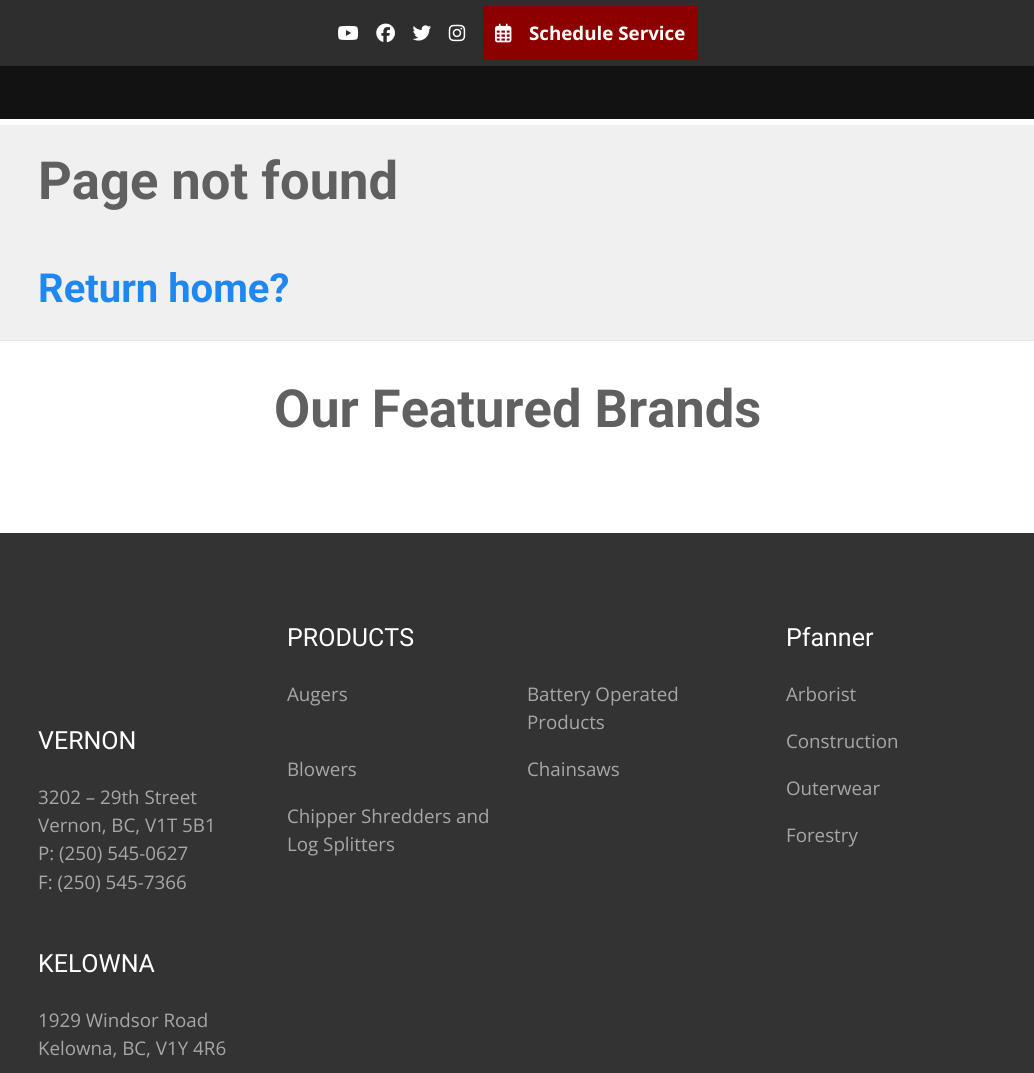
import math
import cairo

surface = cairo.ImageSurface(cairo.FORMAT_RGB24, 1034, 1073)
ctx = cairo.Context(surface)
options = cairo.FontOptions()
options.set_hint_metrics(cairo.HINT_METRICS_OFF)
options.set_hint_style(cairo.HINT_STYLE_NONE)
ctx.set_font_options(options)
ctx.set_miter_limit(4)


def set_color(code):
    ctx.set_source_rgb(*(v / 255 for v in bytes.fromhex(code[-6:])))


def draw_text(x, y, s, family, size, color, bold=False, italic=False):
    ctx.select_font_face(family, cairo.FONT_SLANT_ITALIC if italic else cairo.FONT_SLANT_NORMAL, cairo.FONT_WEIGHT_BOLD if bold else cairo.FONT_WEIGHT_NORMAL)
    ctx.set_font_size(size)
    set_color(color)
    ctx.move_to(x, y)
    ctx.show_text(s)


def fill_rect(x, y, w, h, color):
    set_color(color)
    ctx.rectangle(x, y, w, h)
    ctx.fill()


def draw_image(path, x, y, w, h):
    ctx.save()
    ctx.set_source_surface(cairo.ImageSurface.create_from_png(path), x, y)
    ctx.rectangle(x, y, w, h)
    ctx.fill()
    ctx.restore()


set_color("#f1f0f0")
ctx.paint()
fill_rect(0, 66, 1034, 53, "#121212")
fill_rect(0, 119, 1034, 6, "#ffffff")
fill_rect(0, 0, 1034, 66, "#2e2e2e")
draw_image("assets/img1.png", 338, 25, 21, 15)
draw_image("assets/img2.png", 376, 23, 19, 20)
draw_image("assets/img3.png", 412, 25, 20, 16)
draw_image("assets/img4.png", 448, 24, 18, 18)
fill_rect(483, 6, 215, 54, "#8c0100")
draw_image("assets/img5.png", 495, 23, 17, 20)
draw_text(529, 40, "Schedule Service", "Open Sans", 18.75, "#ffffff", bold=True)
draw_text(38, 199, "Page not found", "Roboto", 52.5, "#606060", bold=True)
draw_text(38, 302, "Return home?", "Roboto", 40, "#1e87f0", bold=True)
fill_rect(0, 341, 1034, 192, "#ffffff")
fill_rect(0, 340, 1034, 1, "#e5e9ea")
draw_text(274, 427, "Our Featured Brands", "Roboto", 52.5, "#606060", bold=True)
fill_rect(0, 533, 1034, 540, "#333333")
draw_text(38, 749, "VERNON", "Roboto", 25, "#ffffff")
draw_text(38, 804, "3202 – 29th Street", "Open Sans", 18.75, "#a7a7a7")
draw_text(38, 832, "Vernon, BC, V1T 5B1", "Open Sans", 18.75, "#a7a7a7")
draw_text(38, 860, "P: (250) 545-0627", "Open Sans", 18.75, "#a7a7a7")
draw_text(38, 889, "F: (250) 545-7366", "Open Sans", 18.75, "#a7a7a7")
draw_text(38, 972, "KELOWNA", "Roboto", 25, "#ffffff")
draw_text(38, 1027, "1929 Windsor Road", "Open Sans", 18.75, "#a7a7a7")
draw_text(38, 1055, "Kelowna, BC, V1Y 4R6", "Open Sans", 18.75, "#a7a7a7")
draw_text(287, 646, "PRODUCTS", "Roboto", 25, "#ffffff")
draw_text(287, 701, "Augers", "Open Sans", 18.75, "#a7a7a7")
draw_text(527, 701, "Battery Operated", "Open Sans", 18.75, "#a7a7a7")
draw_text(527, 729, "Products", "Open Sans", 18.75, "#a7a7a7")
draw_text(287, 776, "Blowers", "Open Sans", 18.75, "#a7a7a7")
draw_text(527, 776, "Chainsaws", "Open Sans", 18.75, "#a7a7a7")
draw_text(287, 823, "Chipper Shredders and", "Open Sans", 18.75, "#a7a7a7")
draw_text(287, 851, "Log Splitters", "Open Sans", 18.75, "#a7a7a7")
draw_text(786, 646, "Pfanner", "Roboto", 25, "#ffffff")
draw_text(786, 701, "Arborist", "Open Sans", 18.75, "#a7a7a7")
draw_text(786, 748, "Construction", "Open Sans", 18.75, "#a7a7a7")
draw_text(786, 795, "Outerwear", "Open Sans", 18.75, "#a7a7a7")
draw_text(786, 842, "Forestry", "Open Sans", 18.75, "#a7a7a7")
surface.write_to_png("output.png")
